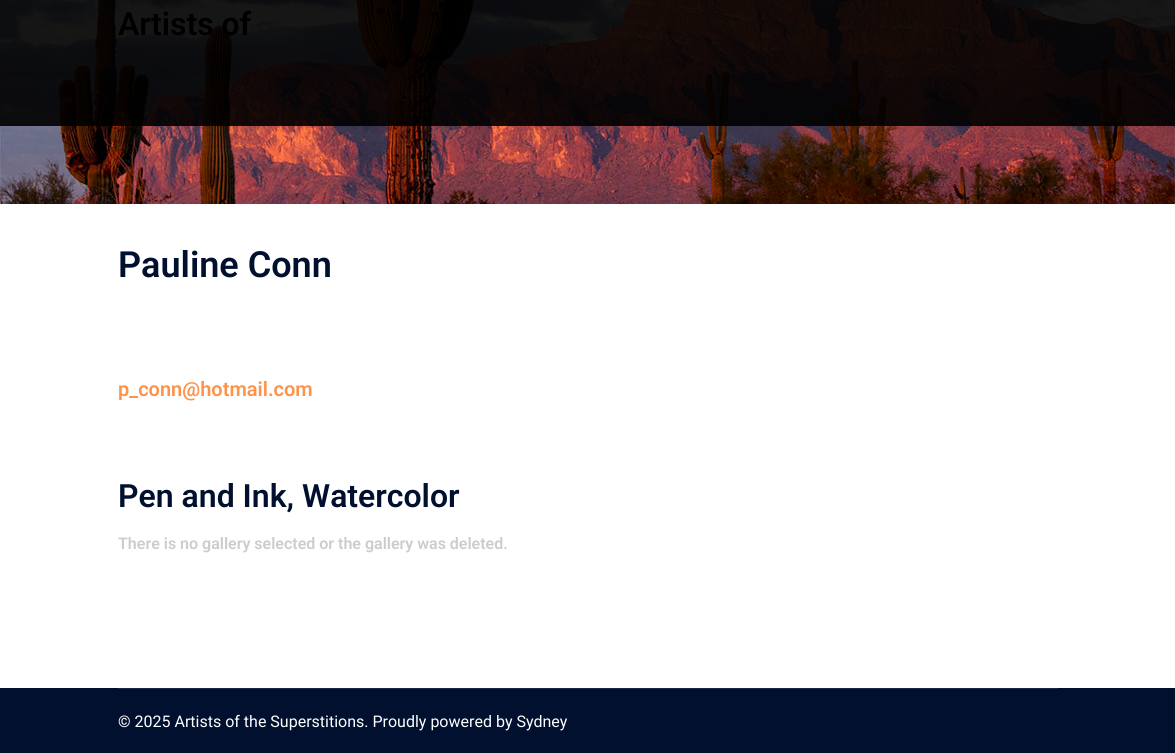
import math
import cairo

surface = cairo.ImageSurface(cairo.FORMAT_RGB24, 1175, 753)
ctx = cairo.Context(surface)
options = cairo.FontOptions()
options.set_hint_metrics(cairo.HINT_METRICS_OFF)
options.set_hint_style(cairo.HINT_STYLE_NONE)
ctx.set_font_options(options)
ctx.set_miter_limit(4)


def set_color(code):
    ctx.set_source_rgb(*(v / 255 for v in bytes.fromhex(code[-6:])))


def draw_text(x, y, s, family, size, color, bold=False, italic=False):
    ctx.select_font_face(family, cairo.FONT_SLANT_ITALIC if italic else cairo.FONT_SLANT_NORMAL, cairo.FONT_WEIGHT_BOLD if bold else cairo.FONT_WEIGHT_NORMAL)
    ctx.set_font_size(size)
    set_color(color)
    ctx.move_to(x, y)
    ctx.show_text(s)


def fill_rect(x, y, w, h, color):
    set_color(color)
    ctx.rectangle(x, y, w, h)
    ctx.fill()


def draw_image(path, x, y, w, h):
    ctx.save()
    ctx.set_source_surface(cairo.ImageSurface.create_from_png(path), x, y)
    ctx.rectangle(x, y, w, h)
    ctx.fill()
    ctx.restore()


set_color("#ffffff")
ctx.paint()
draw_image("assets/img1.png", 0, 0, 1175, 204)
ctx.set_source_rgba(0, 0, 0, 0.9)
ctx.rectangle(0, 0, 1175, 126)
ctx.fill()
draw_text(118, 35, "Artists of", "Roboto SemiBold", 32, "#000000")
draw_text(118, 277, "Pauline Conn", "Roboto SemiBold", 36, "#00102e")
draw_text(118, 396, "p_conn@hotmail.com", "Roboto SemiBold", 20, "#ff9249")
draw_text(118, 507, "Pen and Ink, Watercolor", "Roboto SemiBold", 32, "#00102e")
draw_text(118, 549, "There is no gallery selected or the gallery was deleted.", "Roboto SemiBold", 16, "#cccccc")
fill_rect(0, 688, 1175, 65, "#00102e")
fill_rect(118, 688, 940, 1, "#1a2843")
draw_text(118, 727, "© 2025 Artists of the Superstitions. Proudly powered by Sydney", "Roboto", 16, "#ffffff")
surface.write_to_png("output.png")
